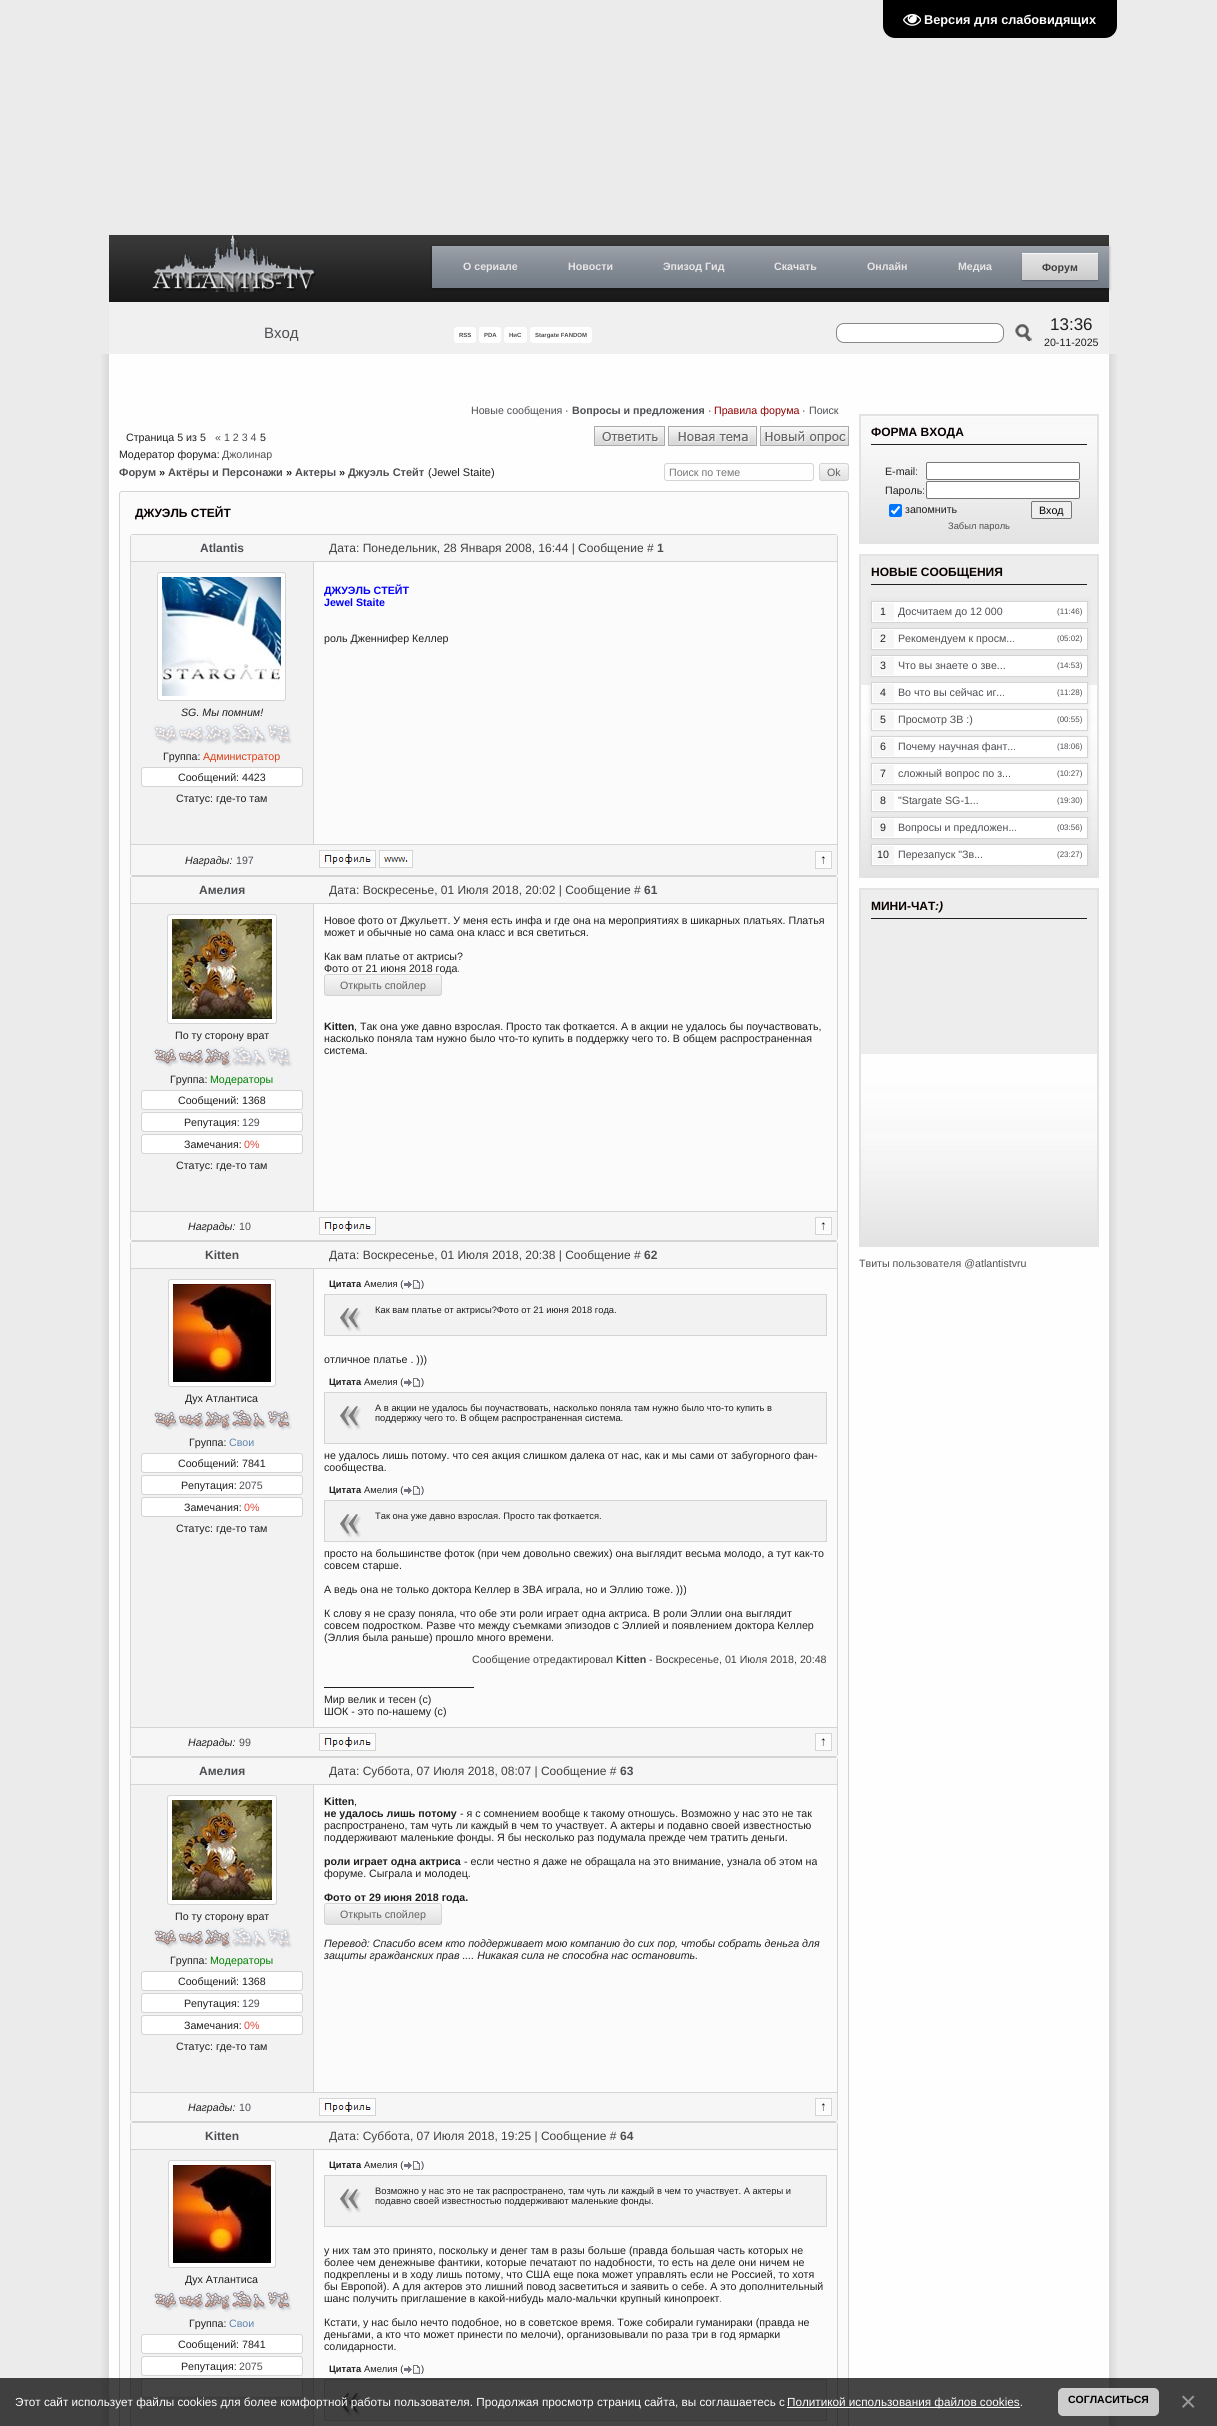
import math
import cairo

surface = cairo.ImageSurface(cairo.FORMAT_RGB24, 1217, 2426)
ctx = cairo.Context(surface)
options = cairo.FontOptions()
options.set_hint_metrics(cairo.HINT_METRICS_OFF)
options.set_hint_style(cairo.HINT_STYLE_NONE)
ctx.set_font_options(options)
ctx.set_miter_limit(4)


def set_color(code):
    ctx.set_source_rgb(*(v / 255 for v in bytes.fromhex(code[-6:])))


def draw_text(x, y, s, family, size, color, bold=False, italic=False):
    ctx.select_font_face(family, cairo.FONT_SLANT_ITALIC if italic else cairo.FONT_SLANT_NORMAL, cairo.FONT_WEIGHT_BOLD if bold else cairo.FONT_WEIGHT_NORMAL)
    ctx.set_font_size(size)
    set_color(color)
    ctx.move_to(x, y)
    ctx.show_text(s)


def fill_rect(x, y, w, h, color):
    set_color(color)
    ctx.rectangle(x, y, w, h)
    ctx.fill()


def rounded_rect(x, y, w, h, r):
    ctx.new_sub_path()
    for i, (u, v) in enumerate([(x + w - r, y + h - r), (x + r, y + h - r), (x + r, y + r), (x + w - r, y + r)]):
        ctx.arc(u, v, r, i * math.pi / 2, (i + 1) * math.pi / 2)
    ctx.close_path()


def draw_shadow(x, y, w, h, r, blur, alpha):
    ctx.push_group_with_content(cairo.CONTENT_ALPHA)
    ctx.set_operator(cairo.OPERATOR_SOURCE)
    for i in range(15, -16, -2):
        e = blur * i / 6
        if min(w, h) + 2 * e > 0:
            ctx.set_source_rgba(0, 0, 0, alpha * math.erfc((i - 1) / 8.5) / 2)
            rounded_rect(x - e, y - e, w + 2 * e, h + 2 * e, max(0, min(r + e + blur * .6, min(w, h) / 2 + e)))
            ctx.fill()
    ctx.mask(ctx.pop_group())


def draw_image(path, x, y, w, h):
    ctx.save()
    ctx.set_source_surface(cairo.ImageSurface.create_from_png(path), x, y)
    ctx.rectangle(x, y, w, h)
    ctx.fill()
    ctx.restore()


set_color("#ebebeb")
ctx.paint()
set_color("#000000")
ctx.new_path()
ctx.move_to(883, 0)
ctx.line_to(1117, 0)
ctx.line_to(1117, 26)
ctx.curve_to(1117, 32.5, 1111.5, 38, 1105, 38)
ctx.line_to(895, 38)
ctx.curve_to(888.5, 38, 883, 32.5, 883, 26)
ctx.close_path()
ctx.fill()
draw_image("assets/img1.png", 903, 13, 18, 13)
draw_text(924, 24, "Версия для слабовидящих", "Liberation Sans", 12.75, "#ffffff", bold=True)
draw_image("assets/img2.png", 109, 235, 1000, 67)
draw_image("assets/img3.png", 152, 235, 164, 57)
set_color("#000000")
draw_shadow(432, 247, 677, 42, 0, 1.5, 0.4)
fill_rect(432, 246, 677, 42, "#67707c")
draw_image("assets/img4.png", 432, 246, 677, 42)
draw_text(463, 270, "О сериале", "Liberation Sans", 10.65, "#e7e5e5", bold=True)
draw_text(568, 270, "Новости", "Liberation Sans", 10.65, "#e7e5e5", bold=True)
draw_text(663, 270, "Эпизод Гид", "Liberation Sans", 10.65, "#e7e5e5", bold=True)
draw_text(774, 270, "Скачать", "Liberation Sans", 10.65, "#e7e5e5", bold=True)
draw_text(867, 270, "Онлайн", "Liberation Sans", 10.65, "#e7e5e5", bold=True)
draw_text(958, 270, "Медиа", "Liberation Sans", 10.65, "#e7e5e5", bold=True)
set_color("#000000")
draw_shadow(1022, 254, 76, 27, 0, 0.5, 0.2)
fill_rect(1022, 254, 76, 26, "#666666")
draw_image("assets/img5.png", 1022, 254, 76, 26)
fill_rect(1022, 253, 76, 1, "#f8f8f8")
draw_text(1042, 271, "Форум", "Liberation Sans", 10.65, "#404040", bold=True)
fill_rect(109, 302, 1000, 52, "#f0f0f0")
draw_text(264, 338, "Вход", "Liberation Sans", 15, "#4d4f53")
set_color("#ffffff")
rounded_rect(454, 327, 22, 16, 3)
ctx.fill()
draw_text(459, 337, "RSS", "Liberation Sans", 6, "#4d4f53", bold=True)
set_color("#ffffff")
rounded_rect(479, 327, 22, 16, 3)
ctx.fill()
draw_text(484, 337, "PDA", "Liberation Sans", 6, "#4d4f53", bold=True)
set_color("#ffffff")
rounded_rect(504, 327, 23, 16, 3)
ctx.fill()
draw_text(509, 337, "НиС", "Liberation Sans", 6, "#4d4f53", bold=True)
set_color("#ffffff")
rounded_rect(530, 327, 62, 16, 3)
ctx.fill()
draw_text(535, 337, "Stargate FANDOM", "Liberation Sans", 6, "#4d4f53", bold=True)
set_color("#ffffff")
rounded_rect(836.5, 323.5, 167, 19, 7.5)
ctx.fill_preserve()
set_color("#878787")
ctx.set_line_width(1)
ctx.stroke()
draw_image("assets/img6.png", 1015, 324, 17, 17)
draw_text(1050, 330, "13:36", "Liberation Sans", 17, "#1f1f1f")
draw_text(1044, 346, "20-11-2025", "Liberation Sans", 10.65, "#1f1f1f")
draw_image("assets/img7.png", 101, 354, 8, 2072)
draw_image("assets/img8.png", 1109, 354, 8, 2072)
fill_rect(109, 354, 1000, 2072, "#fefefe")
draw_text(471, 414, "Новые сообщения", "Liberation Sans", 10.65, "#4d4f53")
draw_text(565, 414, "·", "Liberation Sans", 10.65, "#1f1f1f")
draw_text(572, 414, "Вопросы и предложения", "Liberation Sans", 10.65, "#4d4f53", bold=True)
draw_text(708, 414, "·", "Liberation Sans", 10.65, "#1f1f1f")
draw_text(714, 414, "Правила форума", "Liberation Sans", 10.65, "#900000")
draw_text(802, 414, "·", "Liberation Sans", 10.65, "#1f1f1f")
draw_text(809, 414, "Поиск", "Liberation Sans", 10.65, "#4d4f53")
draw_text(126, 441, "Страница 5 из 5", "Liberation Sans", 10.65, "#1f1f1f")
draw_text(215, 441, "« 1 2 3 4", "Liberation Sans", 10.65, "#4d4f53")
draw_text(260, 441, "5", "Liberation Sans", 10.65, "#1f1f1f")
draw_image("assets/img9.png", 594, 426, 71, 20)
draw_image("assets/img10.png", 668, 426, 89, 20)
draw_image("assets/img11.png", 760, 426, 89, 20)
draw_text(119, 458, "Модератор форума:", "Liberation Sans", 10.65, "#1f1f1f")
draw_text(222, 458, "Джолинар", "Liberation Sans", 10.65, "#4d4f53")
draw_text(119, 476, "Форум", "Liberation Sans", 11, "#4d4f53", bold=True)
draw_text(159, 476, "»", "Liberation Sans", 11, "#1f1f1f", bold=True)
draw_text(168, 476, "Актёры и Персонажи", "Liberation Sans", 11, "#4d4f53", bold=True)
draw_text(286, 476, "»", "Liberation Sans", 11, "#1f1f1f", bold=True)
draw_text(295, 476, "Актеры", "Liberation Sans", 11, "#4d4f53", bold=True)
draw_text(339, 476, "»", "Liberation Sans", 11, "#1f1f1f", bold=True)
draw_text(348, 476, "Джуэль Стейт", "Liberation Sans", 11, "#4d4f53", bold=True)
draw_text(428, 476, "(Jewel Staite)", "Liberation Sans", 11, "#1f1f1f")
rounded_rect(664.5, 463.5, 149, 17, 2.5)
set_color("#d4d4d4")
ctx.stroke()
draw_text(669, 476, "Поиск по теме", "Liberation Sans", 10.65, "#757575")
ctx.save()
rounded_rect(819, 463, 30, 18, 3)
ctx.clip()
gradient = cairo.LinearGradient(834, 464, 834, 480)
gradient.add_color_stop_rgba(0, 0.969, 0.969, 0.969, 1)
gradient.add_color_stop_rgba(1, 0.882, 0.882, 0.882, 1)
ctx.set_source(gradient)
ctx.rectangle(819, 464, 30, 16)
ctx.fill()
ctx.restore()
rounded_rect(819.5, 463.5, 29, 17, 2.5)
set_color("#d4d4d4")
ctx.stroke()
draw_text(827, 476, "Ok", "Liberation Sans", 10.65, "#616161")
set_color("#fbfbfb")
rounded_rect(119.5, 491.5, 729, 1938, 2.5)
ctx.fill_preserve()
set_color("#d4d4d4")
ctx.stroke()
draw_text(135, 517, "ДЖУЭЛЬ СТЕЙТ", "Liberation Sans", 12, "#090000", bold=True)
rounded_rect(130.5, 534.5, 707, 341, 2.5)
set_color("#d4d4d4")
ctx.stroke()
fill_rect(131, 535, 706, 26, "#f6f6f6")
draw_text(200, 552, "Atlantis", "Liberation Sans", 12, "#4d4f53", bold=True)
draw_text(329, 552, "Дата: Понедельник, 28 Января 2008, 16:44 | Сообщение #", "Liberation Sans", 12, "#404040")
draw_text(657, 552, "1", "Liberation Sans", 12, "#4d4f53", bold=True)
draw_text(324, 594, "ДЖУЭЛЬ СТЕЙТ", "Liberation Sans", 10.65, "#0000ff", bold=True)
draw_text(324, 606, "Jewel Staite", "Liberation Sans", 10.65, "#0000ff", bold=True)
draw_text(324, 642, "роль Дженнифер Келлер", "Liberation Sans", 10.65, "#1f1f1f")
fill_rect(131, 562, 182, 282, "#f2f2f2")
fill_rect(131, 561, 706, 1, "#d4d4d4")
fill_rect(313, 561, 1, 284, "#d4d4d4")
fill_rect(131, 844, 706, 1, "#d4d4d4")
set_color("#ffffff")
rounded_rect(157.5, 572.5, 128, 128, 2.5)
ctx.fill_preserve()
set_color("#d4d4d4")
ctx.stroke()
draw_image("assets/img12.png", 162, 577, 119, 119)
draw_text(181, 716, "SG. Мы помним!", "Liberation Sans", 10.65, "#1f1f1f", italic=True)
draw_image("assets/img13.png", 153, 723, 139, 22)
draw_text(163, 760, "Группа:", "Liberation Sans", 10.65, "#1f1f1f")
draw_text(203, 760, "Администратор", "Liberation Sans", 10.65, "#dd3d15")
set_color("#ffffff")
rounded_rect(141.5, 767.5, 161, 19, 2.5)
ctx.fill_preserve()
set_color("#d4d4d4")
ctx.stroke()
draw_text(178, 781, "Сообщений: 4423", "Liberation Sans", 10.65, "#1f1f1f")
draw_text(176, 802, "Статус: где-то там", "Liberation Sans", 10.65, "#1f1f1f")
fill_rect(131, 845, 706, 30, "#f6f6f6")
draw_text(185, 864, "Награды:", "Liberation Sans", 10.65, "#1f1f1f", italic=True)
draw_text(236, 864, "197", "Liberation Sans", 10.65, "#4d4f53")
draw_image("assets/img14.png", 319, 850, 57, 18)
draw_image("assets/img15.png", 379, 850, 34, 18)
draw_image("assets/img16.png", 815, 851, 17, 18)
rounded_rect(130.5, 876.5, 707, 364, 2.5)
set_color("#d4d4d4")
ctx.stroke()
fill_rect(131, 877, 706, 26, "#f6f6f6")
draw_text(199, 894, "Амелия", "Liberation Sans", 12, "#4d4f53", bold=True)
draw_text(329, 894, "Дата: Воскресенье, 01 Июля 2018, 20:02 | Сообщение #", "Liberation Sans", 12, "#404040")
draw_text(644, 894, "61", "Liberation Sans", 12, "#4d4f53", bold=True)
draw_text(324, 924, "Новое фото от Джульетт. У меня есть инфа и где она на мероприятиях в шикарных платьях. Платья", "Liberation Sans", 10.65, "#1f1f1f")
draw_text(324, 936, "может и обычные но сама она класс и вся светиться.", "Liberation Sans", 10.65, "#1f1f1f")
draw_text(324, 960, "Как вам платье от актрисы?", "Liberation Sans", 10.65, "#1f1f1f")
draw_text(324, 972, "Фото от 21 июня 2018 года.", "Liberation Sans", 10.65, "#1f1f1f")
ctx.save()
rounded_rect(324, 974, 118, 22, 3)
ctx.clip()
gradient = cairo.LinearGradient(383, 975, 383, 995)
gradient.add_color_stop_rgba(0, 0.969, 0.969, 0.969, 1)
gradient.add_color_stop_rgba(1, 0.882, 0.882, 0.882, 1)
ctx.set_source(gradient)
ctx.rectangle(324, 975, 118, 20)
ctx.fill()
ctx.restore()
rounded_rect(324.5, 974.5, 117, 21, 2.5)
set_color("#d4d4d4")
ctx.stroke()
draw_text(340, 989, "Открыть спойлер", "Liberation Sans", 10.65, "#616161")
draw_text(324, 1030, "Kitten", "Liberation Sans", 10.65, "#1f1f1f", bold=True)
draw_text(354, 1030, ", Так она уже давно взрослая. Просто так фоткается. А в акции не удалось бы поучаствовать,", "Liberation Sans", 10.65, "#1f1f1f")
draw_text(324, 1042, "насколько поняла там нужно было что-то купить в поддержку чего то. В общем распространенная", "Liberation Sans", 10.65, "#1f1f1f")
draw_text(324, 1054, "система.", "Liberation Sans", 10.65, "#1f1f1f")
fill_rect(131, 904, 182, 307, "#f2f2f2")
fill_rect(131, 903, 706, 1, "#d4d4d4")
fill_rect(313, 903, 1, 309, "#d4d4d4")
fill_rect(131, 1211, 706, 1, "#d4d4d4")
set_color("#ffffff")
rounded_rect(167.5, 914.5, 109, 109, 2.5)
ctx.fill_preserve()
set_color("#d4d4d4")
ctx.stroke()
draw_image("assets/img17.png", 172, 919, 100, 100)
draw_text(175, 1039, "По ту сторону врат", "Liberation Sans", 10.65, "#1f1f1f")
draw_image("assets/img18.png", 153, 1046, 139, 22)
draw_text(170, 1083, "Группа:", "Liberation Sans", 10.65, "#1f1f1f")
draw_text(210, 1083, "Модераторы", "Liberation Sans", 10.65, "#008000")
set_color("#ffffff")
rounded_rect(141.5, 1090.5, 161, 19, 2.5)
ctx.fill_preserve()
set_color("#d4d4d4")
ctx.stroke()
draw_text(178, 1104, "Сообщений: 1368", "Liberation Sans", 10.65, "#1f1f1f")
set_color("#ffffff")
rounded_rect(141.5, 1112.5, 161, 19, 2.5)
ctx.fill_preserve()
set_color("#d4d4d4")
ctx.stroke()
draw_text(184, 1126, "Репутация:", "Liberation Sans", 10.65, "#1f1f1f")
draw_text(242, 1126, "129", "Liberation Sans", 10.65, "#4d4f53")
set_color("#ffffff")
rounded_rect(141.5, 1134.5, 161, 19, 2.5)
ctx.fill_preserve()
set_color("#d4d4d4")
ctx.stroke()
draw_text(184, 1148, "Замечания:", "Liberation Sans", 10.65, "#1f1f1f")
draw_text(244, 1148, "0%", "Liberation Sans", 10.65, "#df4538")
draw_text(176, 1169, "Статус: где-то там", "Liberation Sans", 10.65, "#1f1f1f")
fill_rect(131, 1212, 706, 28, "#f6f6f6")
draw_text(188, 1230, "Награды:", "Liberation Sans", 10.65, "#1f1f1f", italic=True)
draw_text(239, 1230, "10", "Liberation Sans", 10.65, "#4d4f53")
draw_image("assets/img14.png", 319, 1217, 57, 18)
draw_image("assets/img16.png", 815, 1217, 17, 18)
rounded_rect(130.5, 1241.5, 707, 515, 2.5)
set_color("#d4d4d4")
ctx.stroke()
fill_rect(131, 1242, 706, 26, "#f6f6f6")
draw_text(205, 1259, "Kitten", "Liberation Sans", 12, "#4d4f53", bold=True)
draw_text(329, 1259, "Дата: Воскресенье, 01 Июля 2018, 20:38 | Сообщение #", "Liberation Sans", 12, "#404040")
draw_text(644, 1259, "62", "Liberation Sans", 12, "#4d4f53", bold=True)
fill_rect(131, 1269, 182, 458, "#f2f2f2")
fill_rect(131, 1268, 706, 1, "#d4d4d4")
fill_rect(313, 1268, 1, 460, "#d4d4d4")
fill_rect(131, 1727, 706, 1, "#d4d4d4")
set_color("#ffffff")
rounded_rect(168.5, 1279.5, 107, 107, 2.5)
ctx.fill_preserve()
set_color("#d4d4d4")
ctx.stroke()
draw_image("assets/img19.png", 173, 1284, 98, 98)
draw_text(185, 1402, "Дух Атлантиса", "Liberation Sans", 10.65, "#1f1f1f")
draw_image("assets/img20.png", 153, 1409, 139, 22)
draw_text(189, 1446, "Группа:", "Liberation Sans", 10.65, "#1f1f1f")
draw_text(229, 1446, "Свои", "Liberation Sans", 10.65, "#5c83ac")
set_color("#ffffff")
rounded_rect(141.5, 1453.5, 161, 19, 2.5)
ctx.fill_preserve()
set_color("#d4d4d4")
ctx.stroke()
draw_text(178, 1467, "Сообщений: 7841", "Liberation Sans", 10.65, "#1f1f1f")
set_color("#ffffff")
rounded_rect(141.5, 1475.5, 161, 19, 2.5)
ctx.fill_preserve()
set_color("#d4d4d4")
ctx.stroke()
draw_text(181, 1489, "Репутация:", "Liberation Sans", 10.65, "#1f1f1f")
draw_text(239, 1489, "2075", "Liberation Sans", 10.65, "#4d4f53")
set_color("#ffffff")
rounded_rect(141.5, 1497.5, 161, 19, 2.5)
ctx.fill_preserve()
set_color("#d4d4d4")
ctx.stroke()
draw_text(184, 1511, "Замечания:", "Liberation Sans", 10.65, "#1f1f1f")
draw_text(244, 1511, "0%", "Liberation Sans", 10.65, "#df4538")
draw_text(176, 1532, "Статус: где-то там", "Liberation Sans", 10.65, "#1f1f1f")
draw_text(329, 1287, "Цитата", "Liberation Sans", 9.35, "#1f1f1f", bold=True)
draw_text(364, 1287, "Амелия (", "Liberation Sans", 9.35, "#1f1f1f")
draw_image("assets/img21.png", 404, 1280, 16, 9)
draw_text(421, 1287, ")", "Liberation Sans", 9.35, "#1f1f1f")
fill_rect(325, 1295, 501, 40, "#f2f2f2")
draw_image("assets/img22.png", 340, 1308, 21, 24)
ctx.rectangle(324.5, 1294.5, 502, 41)
set_color("#d4d4d4")
ctx.stroke()
draw_text(375, 1313, "Как вам платье от актрисы?Фото от 21 июня 2018 года.", "Liberation Sans", 9.35, "#1f1f1f")
draw_text(324, 1363, "отличное платье . )))", "Liberation Sans", 10.65, "#1f1f1f")
draw_text(329, 1385, "Цитата", "Liberation Sans", 9.35, "#1f1f1f", bold=True)
draw_text(364, 1385, "Амелия (", "Liberation Sans", 9.35, "#1f1f1f")
draw_image("assets/img21.png", 404, 1378, 16, 9)
draw_text(421, 1385, ")", "Liberation Sans", 9.35, "#1f1f1f")
fill_rect(325, 1393, 501, 50, "#f2f2f2")
draw_image("assets/img22.png", 340, 1406, 21, 24)
ctx.rectangle(324.5, 1392.5, 502, 51)
set_color("#d4d4d4")
ctx.stroke()
draw_text(375, 1411, "А в акции не удалось бы поучаствовать, насколько поняла там нужно было что-то купить в", "Liberation Sans", 9.35, "#1f1f1f")
draw_text(375, 1421, "поддержку чего то. В общем распространенная система.", "Liberation Sans", 9.35, "#1f1f1f")
draw_text(324, 1459, "не удалось лишь потому. что сея акция слишком далека от нас, как и мы сами от забугорного фан-", "Liberation Sans", 10.65, "#1f1f1f")
draw_text(324, 1471, "сообщества.", "Liberation Sans", 10.65, "#1f1f1f")
draw_text(329, 1493, "Цитата", "Liberation Sans", 9.35, "#1f1f1f", bold=True)
draw_text(364, 1493, "Амелия (", "Liberation Sans", 9.35, "#1f1f1f")
draw_image("assets/img21.png", 404, 1486, 16, 9)
draw_text(421, 1493, ")", "Liberation Sans", 9.35, "#1f1f1f")
fill_rect(325, 1501, 501, 40, "#f2f2f2")
draw_image("assets/img22.png", 340, 1514, 21, 24)
ctx.rectangle(324.5, 1500.5, 502, 41)
set_color("#d4d4d4")
ctx.stroke()
draw_text(375, 1519, "Так она уже давно взрослая. Просто так фоткается.", "Liberation Sans", 9.35, "#1f1f1f")
draw_text(324, 1557, "просто на большинстве фоток (при чем довольно свежих) она выглядит весьма молодо, а тут как-то", "Liberation Sans", 10.65, "#1f1f1f")
draw_text(324, 1569, "совсем старше.", "Liberation Sans", 10.65, "#1f1f1f")
draw_text(324, 1593, "А ведь она не только доктора Келлер в ЗВА играла, но и Эллию тоже. )))", "Liberation Sans", 10.65, "#1f1f1f")
draw_text(324, 1617, "К слову я не сразу поняла, что обе эти роли играет одна актриса. В роли Эллии она выглядит", "Liberation Sans", 10.65, "#1f1f1f")
draw_text(324, 1629, "совсем подростком. Разве что между съемками эпизодов с Эллией и появлением доктора Келлер", "Liberation Sans", 10.65, "#1f1f1f")
draw_text(324, 1641, "(Эллия была раньше) прошло много времени.", "Liberation Sans", 10.65, "#1f1f1f")
draw_text(472, 1663, "Сообщение отредактировал", "Liberation Sans", 10.65, "#404040")
draw_text(616, 1663, "Kitten", "Liberation Sans", 10.65, "#404040", bold=True)
draw_text(649, 1663, "- Воскресенье, 01 Июля 2018, 20:48", "Liberation Sans", 10.65, "#404040")
fill_rect(324, 1687, 150, 1, "#1f1f1f")
draw_text(324, 1703, "Мир велик и тесен (с)", "Liberation Sans", 10.65, "#1f1f1f")
draw_text(324, 1715, "ШОК - это по-нашему (с)", "Liberation Sans", 10.65, "#1f1f1f")
fill_rect(131, 1728, 706, 28, "#f6f6f6")
draw_text(188, 1746, "Награды:", "Liberation Sans", 10.65, "#1f1f1f", italic=True)
draw_text(239, 1746, "99", "Liberation Sans", 10.65, "#4d4f53")
draw_image("assets/img14.png", 319, 1733, 57, 18)
draw_image("assets/img16.png", 815, 1733, 17, 18)
rounded_rect(130.5, 1757.5, 707, 364, 2.5)
set_color("#d4d4d4")
ctx.stroke()
fill_rect(131, 1758, 706, 26, "#f6f6f6")
draw_text(199, 1775, "Амелия", "Liberation Sans", 12, "#4d4f53", bold=True)
draw_text(329, 1775, "Дата: Суббота, 07 Июля 2018, 08:07 | Сообщение #", "Liberation Sans", 12, "#404040")
draw_text(620, 1775, "63", "Liberation Sans", 12, "#4d4f53", bold=True)
draw_text(324, 1805, "Kitten", "Liberation Sans", 10.65, "#1f1f1f", bold=True)
draw_text(354, 1805, ",", "Liberation Sans", 10.65, "#1f1f1f")
draw_text(324, 1817, "не удалось лишь потому", "Liberation Sans", 10.65, "#1f1f1f", bold=True)
draw_text(460, 1817, "- я с сомнением вообще к такому отношусь. Возможно у нас это не так", "Liberation Sans", 10.65, "#1f1f1f")
draw_text(324, 1829, "распространено, там чуть ли каждый в чем то участвует. А актеры и подавно своей известностью", "Liberation Sans", 10.65, "#1f1f1f")
draw_text(324, 1841, "поддерживают маленькие фонды. Я бы несколько раз подумала прежде чем тратить деньги.", "Liberation Sans", 10.65, "#1f1f1f")
draw_text(324, 1865, "роли играет одна актриса", "Liberation Sans", 10.65, "#1f1f1f", bold=True)
draw_text(464, 1865, "- если честно я даже не обращала на это внимание, узнала об этом на", "Liberation Sans", 10.65, "#1f1f1f")
draw_text(324, 1877, "форуме. Сыграла и молодец.", "Liberation Sans", 10.65, "#1f1f1f")
draw_text(324, 1901, "Фото от 29 июня 2018 года.", "Liberation Sans", 10.65, "#1f1f1f", bold=True)
ctx.save()
rounded_rect(324, 1903, 118, 22, 3)
ctx.clip()
gradient = cairo.LinearGradient(383, 1904, 383, 1924)
gradient.add_color_stop_rgba(0, 0.969, 0.969, 0.969, 1)
gradient.add_color_stop_rgba(1, 0.882, 0.882, 0.882, 1)
ctx.set_source(gradient)
ctx.rectangle(324, 1904, 118, 20)
ctx.fill()
ctx.restore()
rounded_rect(324.5, 1903.5, 117, 21, 2.5)
set_color("#d4d4d4")
ctx.stroke()
draw_text(340, 1918, "Открыть спойлер", "Liberation Sans", 10.65, "#616161")
draw_text(324, 1947, "Перевод: Спасибо всем кто поддерживает мою компанию до сих пор, чтобы собрать деньга для", "Liberation Sans", 10.65, "#1f1f1f", italic=True)
draw_text(324, 1959, "защиты гражданских прав .... Никакая сила не способна нас остановить.", "Liberation Sans", 10.65, "#1f1f1f", italic=True)
fill_rect(131, 1785, 182, 307, "#f2f2f2")
fill_rect(131, 1784, 706, 1, "#d4d4d4")
fill_rect(313, 1784, 1, 309, "#d4d4d4")
fill_rect(131, 2092, 706, 1, "#d4d4d4")
set_color("#ffffff")
rounded_rect(167.5, 1795.5, 109, 109, 2.5)
ctx.fill_preserve()
set_color("#d4d4d4")
ctx.stroke()
draw_image("assets/img17.png", 172, 1800, 100, 100)
draw_text(175, 1920, "По ту сторону врат", "Liberation Sans", 10.65, "#1f1f1f")
draw_image("assets/img18.png", 153, 1927, 139, 22)
draw_text(170, 1964, "Группа:", "Liberation Sans", 10.65, "#1f1f1f")
draw_text(210, 1964, "Модераторы", "Liberation Sans", 10.65, "#008000")
set_color("#ffffff")
rounded_rect(141.5, 1971.5, 161, 19, 2.5)
ctx.fill_preserve()
set_color("#d4d4d4")
ctx.stroke()
draw_text(178, 1985, "Сообщений: 1368", "Liberation Sans", 10.65, "#1f1f1f")
set_color("#ffffff")
rounded_rect(141.5, 1993.5, 161, 19, 2.5)
ctx.fill_preserve()
set_color("#d4d4d4")
ctx.stroke()
draw_text(184, 2007, "Репутация:", "Liberation Sans", 10.65, "#1f1f1f")
draw_text(242, 2007, "129", "Liberation Sans", 10.65, "#4d4f53")
set_color("#ffffff")
rounded_rect(141.5, 2015.5, 161, 19, 2.5)
ctx.fill_preserve()
set_color("#d4d4d4")
ctx.stroke()
draw_text(184, 2029, "Замечания:", "Liberation Sans", 10.65, "#1f1f1f")
draw_text(244, 2029, "0%", "Liberation Sans", 10.65, "#df4538")
draw_text(176, 2050, "Статус: где-то там", "Liberation Sans", 10.65, "#1f1f1f")
fill_rect(131, 2093, 706, 28, "#f6f6f6")
draw_text(188, 2111, "Награды:", "Liberation Sans", 10.65, "#1f1f1f", italic=True)
draw_text(239, 2111, "10", "Liberation Sans", 10.65, "#4d4f53")
draw_image("assets/img14.png", 319, 2098, 57, 18)
draw_image("assets/img16.png", 815, 2098, 17, 18)
rounded_rect(130.5, 2122.5, 707, 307, 2.5)
set_color("#d4d4d4")
ctx.stroke()
fill_rect(131, 2123, 706, 26, "#f6f6f6")
draw_text(205, 2140, "Kitten", "Liberation Sans", 12, "#4d4f53", bold=True)
draw_text(329, 2140, "Дата: Суббота, 07 Июля 2018, 19:25 | Сообщение #", "Liberation Sans", 12, "#404040")
draw_text(620, 2140, "64", "Liberation Sans", 12, "#4d4f53", bold=True)
fill_rect(131, 2150, 182, 276, "#f2f2f2")
fill_rect(131, 2149, 706, 1, "#d4d4d4")
fill_rect(313, 2149, 1, 277, "#d4d4d4")
set_color("#ffffff")
rounded_rect(168.5, 2160.5, 107, 107, 2.5)
ctx.fill_preserve()
set_color("#d4d4d4")
ctx.stroke()
draw_image("assets/img19.png", 173, 2165, 98, 98)
draw_text(185, 2283, "Дух Атлантиса", "Liberation Sans", 10.65, "#1f1f1f")
draw_image("assets/img20.png", 153, 2290, 139, 22)
draw_text(189, 2327, "Группа:", "Liberation Sans", 10.65, "#1f1f1f")
draw_text(229, 2327, "Свои", "Liberation Sans", 10.65, "#5c83ac")
set_color("#ffffff")
rounded_rect(141.5, 2334.5, 161, 19, 2.5)
ctx.fill_preserve()
set_color("#d4d4d4")
ctx.stroke()
draw_text(178, 2348, "Сообщений: 7841", "Liberation Sans", 10.65, "#1f1f1f")
set_color("#ffffff")
rounded_rect(141.5, 2356.5, 161, 19, 2.5)
ctx.fill_preserve()
set_color("#d4d4d4")
ctx.stroke()
draw_text(181, 2370, "Репутация:", "Liberation Sans", 10.65, "#1f1f1f")
draw_text(239, 2370, "2075", "Liberation Sans", 10.65, "#4d4f53")
set_color("#ffffff")
rounded_rect(141.5, 2378.5, 161, 19, 2.5)
ctx.fill_preserve()
set_color("#d4d4d4")
ctx.stroke()
draw_text(329, 2168, "Цитата", "Liberation Sans", 9.35, "#1f1f1f", bold=True)
draw_text(364, 2168, "Амелия (", "Liberation Sans", 9.35, "#1f1f1f")
draw_image("assets/img21.png", 404, 2161, 16, 9)
draw_text(421, 2168, ")", "Liberation Sans", 9.35, "#1f1f1f")
fill_rect(325, 2176, 501, 50, "#f2f2f2")
draw_image("assets/img22.png", 340, 2189, 21, 24)
ctx.rectangle(324.5, 2175.5, 502, 51)
set_color("#d4d4d4")
ctx.stroke()
draw_text(375, 2194, "Возможно у нас это не так распространено, там чуть ли каждый в чем то участвует. А актеры и", "Liberation Sans", 9.35, "#1f1f1f")
draw_text(375, 2204, "подавно своей известностью поддерживают маленькие фонды.", "Liberation Sans", 9.35, "#1f1f1f")
draw_text(324, 2254, "у них там это принято, поскольку и денег там в разы больше (правда большая часть которых не", "Liberation Sans", 10.65, "#1f1f1f")
draw_text(324, 2266, "более чем денежныве фантики, которые печатают по надобности, то есть на деле они ничем не", "Liberation Sans", 10.65, "#1f1f1f")
draw_text(324, 2278, "подкреплены и в ходу лишь потому, что США еще пока может управлять если не Россией, то хотя", "Liberation Sans", 10.65, "#1f1f1f")
draw_text(324, 2290, "бы Европой). А для актеров это лишний повод засветиться и заявить о себе. А это дополнительный", "Liberation Sans", 10.65, "#1f1f1f")
draw_text(324, 2302, "шанс получить приглашение в какой-нибудь мало-мальчки крупный кинопроект.", "Liberation Sans", 10.65, "#1f1f1f")
draw_text(324, 2326, "Кстати, у нас было нечто подобное, но в советское время. Тоже собирали гуманираки (правда не", "Liberation Sans", 10.65, "#1f1f1f")
draw_text(324, 2338, "деньгами, а кто что может принести по мелочи), организовывали по раза три в год ярмарки", "Liberation Sans", 10.65, "#1f1f1f")
draw_text(324, 2350, "солидарности.", "Liberation Sans", 10.65, "#1f1f1f")
draw_text(329, 2372, "Цитата", "Liberation Sans", 9.35, "#1f1f1f", bold=True)
draw_text(364, 2372, "Амелия (", "Liberation Sans", 9.35, "#1f1f1f")
draw_image("assets/img21.png", 404, 2365, 16, 9)
draw_text(421, 2372, ")", "Liberation Sans", 9.35, "#1f1f1f")
fill_rect(325, 2380, 501, 40, "#f2f2f2")
draw_image("assets/img22.png", 340, 2393, 21, 24)
ctx.rectangle(324.5, 2379.5, 502, 41)
set_color("#d4d4d4")
ctx.stroke()
draw_image("assets/img23.png", 861, 416, 236, 126)
ctx.rectangle(860, 415, 238, 128)
set_color("#e3e3e3")
ctx.set_line_width(2)
ctx.stroke()
draw_text(871, 436, "ФОРМА ВХОДА", "Liberation Sans", 12, "#090000", bold=True)
fill_rect(871, 444, 216, 1, "#1f1f1f")
draw_text(885, 475, "E-mail:", "Liberation Sans", 10.65, "#1f1f1f")
set_color("#ffffff")
rounded_rect(926.5, 462.5, 153, 17, 1.5)
ctx.fill_preserve()
set_color("#767676")
ctx.set_line_width(1)
ctx.stroke()
draw_text(885, 494, "Пароль:", "Liberation Sans", 10.65, "#1f1f1f")
set_color("#ffffff")
rounded_rect(926.5, 481.5, 153, 17, 1.5)
ctx.fill_preserve()
set_color("#767676")
ctx.stroke()
set_color("#0075ff")
rounded_rect(889, 504, 13, 13, 2)
ctx.fill()
ctx.new_path()
ctx.move_to(891.5, 510.5)
ctx.line_to(894, 513)
ctx.line_to(899.5, 506.5)
set_color("#ffffff")
ctx.set_line_width(2.1)
ctx.stroke()
draw_text(905, 513, "запомнить", "Liberation Sans", 10.65, "#1f1f1f")
set_color("#efefef")
rounded_rect(1031.5, 501.5, 40, 17, 1.5)
ctx.fill_preserve()
set_color("#767676")
ctx.set_line_width(1)
ctx.stroke()
draw_text(1039, 514, "Вход", "Liberation Sans", 10.65, "#000000")
draw_text(948, 529, "Забыл пароль", "Liberation Sans", 9.35, "#4d4f53")
fill_rect(861, 556, 236, 129, "#ededed")
draw_image("assets/img24.png", 861, 685, 236, 191)
ctx.rectangle(860, 555, 238, 322)
set_color("#e3e3e3")
ctx.set_line_width(2)
ctx.stroke()
draw_text(871, 576, "НОВЫЕ СООБЩЕНИЯ", "Liberation Sans", 12, "#090000", bold=True)
fill_rect(871, 584, 216, 1, "#1f1f1f")
set_color("#dddddd")
draw_shadow(871, 601, 217, 22, 0, 2.5, 1)
fill_rect(895, 602, 192, 20, "#ffffff")
ctx.rectangle(871.5, 601.5, 216, 21)
set_color("#d4d4d4")
ctx.set_line_width(1)
ctx.stroke()
set_color("#dddddd")
draw_shadow(871, 628, 217, 22, 0, 2.5, 1)
set_color("#f6f6f6")
ctx.rectangle(872.5, 602.5, 22, 19)
ctx.fill_preserve()
set_color("#ffffff")
ctx.stroke()
draw_text(880, 615, "1", "Liberation Sans", 10.65, "#1f1f1f")
draw_text(898, 615, "Досчитаем до 12 000", "Liberation Sans", 10.65, "#4d4f53")
draw_text(1057, 614, "(11:46)", "Liberation Sans", 8, "#4d4f53")
fill_rect(895, 629, 192, 20, "#ffffff")
ctx.rectangle(871.5, 628.5, 216, 21)
set_color("#d4d4d4")
ctx.stroke()
set_color("#dddddd")
draw_shadow(871, 655, 217, 22, 0, 2.5, 1)
set_color("#f6f6f6")
ctx.rectangle(872.5, 629.5, 22, 19)
ctx.fill_preserve()
set_color("#ffffff")
ctx.stroke()
draw_text(880, 642, "2", "Liberation Sans", 10.65, "#1f1f1f")
draw_text(898, 642, "Рекомендуем к просм...", "Liberation Sans", 10.65, "#4d4f53")
draw_text(1057, 641, "(05:02)", "Liberation Sans", 8, "#4d4f53")
fill_rect(895, 656, 192, 20, "#ffffff")
ctx.rectangle(871.5, 655.5, 216, 21)
set_color("#d4d4d4")
ctx.stroke()
set_color("#dddddd")
draw_shadow(871, 682, 217, 22, 0, 2.5, 1)
set_color("#f6f6f6")
ctx.rectangle(872.5, 656.5, 22, 19)
ctx.fill_preserve()
set_color("#ffffff")
ctx.stroke()
draw_text(880, 669, "3", "Liberation Sans", 10.65, "#1f1f1f")
draw_text(898, 669, "Что вы знаете о зве...", "Liberation Sans", 10.65, "#4d4f53")
draw_text(1057, 668, "(14:53)", "Liberation Sans", 8, "#4d4f53")
fill_rect(895, 683, 192, 20, "#ffffff")
ctx.rectangle(871.5, 682.5, 216, 21)
set_color("#d4d4d4")
ctx.stroke()
set_color("#dddddd")
draw_shadow(871, 709, 217, 22, 0, 2.5, 1)
set_color("#f6f6f6")
ctx.rectangle(872.5, 683.5, 22, 19)
ctx.fill_preserve()
set_color("#ffffff")
ctx.stroke()
draw_text(880, 696, "4", "Liberation Sans", 10.65, "#1f1f1f")
draw_text(898, 696, "Во что вы сейчас иг...", "Liberation Sans", 10.65, "#4d4f53")
draw_text(1057, 695, "(11:28)", "Liberation Sans", 8, "#4d4f53")
fill_rect(895, 710, 192, 20, "#ffffff")
ctx.rectangle(871.5, 709.5, 216, 21)
set_color("#d4d4d4")
ctx.stroke()
set_color("#dddddd")
draw_shadow(871, 736, 217, 22, 0, 2.5, 1)
set_color("#f6f6f6")
ctx.rectangle(872.5, 710.5, 22, 19)
ctx.fill_preserve()
set_color("#ffffff")
ctx.stroke()
draw_text(880, 723, "5", "Liberation Sans", 10.65, "#1f1f1f")
draw_text(898, 723, "Просмотр ЗВ :)", "Liberation Sans", 10.65, "#4d4f53")
draw_text(1057, 722, "(00:55)", "Liberation Sans", 8, "#4d4f53")
fill_rect(895, 737, 192, 20, "#ffffff")
ctx.rectangle(871.5, 736.5, 216, 21)
set_color("#d4d4d4")
ctx.stroke()
set_color("#dddddd")
draw_shadow(871, 763, 217, 22, 0, 2.5, 1)
set_color("#f6f6f6")
ctx.rectangle(872.5, 737.5, 22, 19)
ctx.fill_preserve()
set_color("#ffffff")
ctx.stroke()
draw_text(880, 750, "6", "Liberation Sans", 10.65, "#1f1f1f")
draw_text(898, 750, "Почему научная фант...", "Liberation Sans", 10.65, "#4d4f53")
draw_text(1057, 749, "(18:06)", "Liberation Sans", 8, "#4d4f53")
fill_rect(895, 764, 192, 20, "#ffffff")
ctx.rectangle(871.5, 763.5, 216, 21)
set_color("#d4d4d4")
ctx.stroke()
set_color("#dddddd")
draw_shadow(871, 790, 217, 22, 0, 2.5, 1)
set_color("#f6f6f6")
ctx.rectangle(872.5, 764.5, 22, 19)
ctx.fill_preserve()
set_color("#ffffff")
ctx.stroke()
draw_text(880, 777, "7", "Liberation Sans", 10.65, "#1f1f1f")
draw_text(898, 777, "сложный вопрос по з...", "Liberation Sans", 10.65, "#4d4f53")
draw_text(1057, 776, "(10:27)", "Liberation Sans", 8, "#4d4f53")
fill_rect(895, 791, 192, 20, "#ffffff")
ctx.rectangle(871.5, 790.5, 216, 21)
set_color("#d4d4d4")
ctx.stroke()
set_color("#dddddd")
draw_shadow(871, 817, 217, 22, 0, 2.5, 1)
set_color("#f6f6f6")
ctx.rectangle(872.5, 791.5, 22, 19)
ctx.fill_preserve()
set_color("#ffffff")
ctx.stroke()
draw_text(880, 804, "8", "Liberation Sans", 10.65, "#1f1f1f")
draw_text(898, 804, "\"Stargate SG-1...", "Liberation Sans", 10.65, "#4d4f53")
draw_text(1057, 803, "(19:30)", "Liberation Sans", 8, "#4d4f53")
fill_rect(895, 818, 192, 20, "#ffffff")
ctx.rectangle(871.5, 817.5, 216, 21)
set_color("#d4d4d4")
ctx.stroke()
set_color("#dddddd")
draw_shadow(871, 844, 217, 22, 0, 2.5, 1)
set_color("#f6f6f6")
ctx.rectangle(872.5, 818.5, 22, 19)
ctx.fill_preserve()
set_color("#ffffff")
ctx.stroke()
draw_text(880, 831, "9", "Liberation Sans", 10.65, "#1f1f1f")
draw_text(898, 831, "Вопросы и предложен...", "Liberation Sans", 10.65, "#4d4f53")
draw_text(1057, 830, "(03:56)", "Liberation Sans", 8, "#4d4f53")
fill_rect(895, 845, 192, 20, "#ffffff")
ctx.rectangle(871.5, 844.5, 216, 21)
set_color("#d4d4d4")
ctx.stroke()
set_color("#f6f6f6")
ctx.rectangle(872.5, 845.5, 22, 19)
ctx.fill_preserve()
set_color("#ffffff")
ctx.stroke()
draw_text(877, 858, "10", "Liberation Sans", 10.65, "#1f1f1f")
draw_text(898, 858, "Перезапуск \"Зв...", "Liberation Sans", 10.65, "#4d4f53")
draw_text(1057, 857, "(23:27)", "Liberation Sans", 8, "#4d4f53")
fill_rect(861, 890, 236, 164, "#ededed")
draw_image("assets/img24.png", 861, 1054, 236, 191)
ctx.rectangle(860, 889, 238, 357)
set_color("#e3e3e3")
ctx.set_line_width(2)
ctx.stroke()
draw_text(871, 910, "МИНИ-ЧАТ", "Liberation Sans", 12, "#090000", bold=True)
draw_text(935, 910, ":)", "Liberation Sans", 12, "#090000", bold=True, italic=True)
fill_rect(871, 918, 216, 1, "#1f1f1f")
draw_text(859, 1267, "Твиты пользователя @atlantistvru", "Liberation Sans", 10.65, "#4d4f53")
ctx.set_source_rgba(0, 0, 0, 0.73)
ctx.rectangle(0, 2378, 1217, 48)
ctx.fill()
draw_text(15, 2406, "Этот сайт использует файлы cookies для более комфортной работы пользователя. Продолжая просмотр страниц сайта, вы соглашаетесь с", "Liberation Sans", 11.73, "#ffffff")
fill_rect(787, 2407, 233, 1, "#ffffff")
draw_text(787, 2406, "Политикой использования файлов cookies.", "Liberation Sans", 11.73, "#ffffff")
ctx.set_source_rgba(1, 1, 1, 0.73)
rounded_rect(1058, 2388, 101, 28, 5)
ctx.fill()
draw_text(1068, 2403, "СОГЛАСИТЬСЯ", "Liberation Sans", 10.5, "#000000", bold=True)
draw_text(1180, 2411, "×", "Liberation Sans", 28, "#999999")
surface.write_to_png("output.png")
